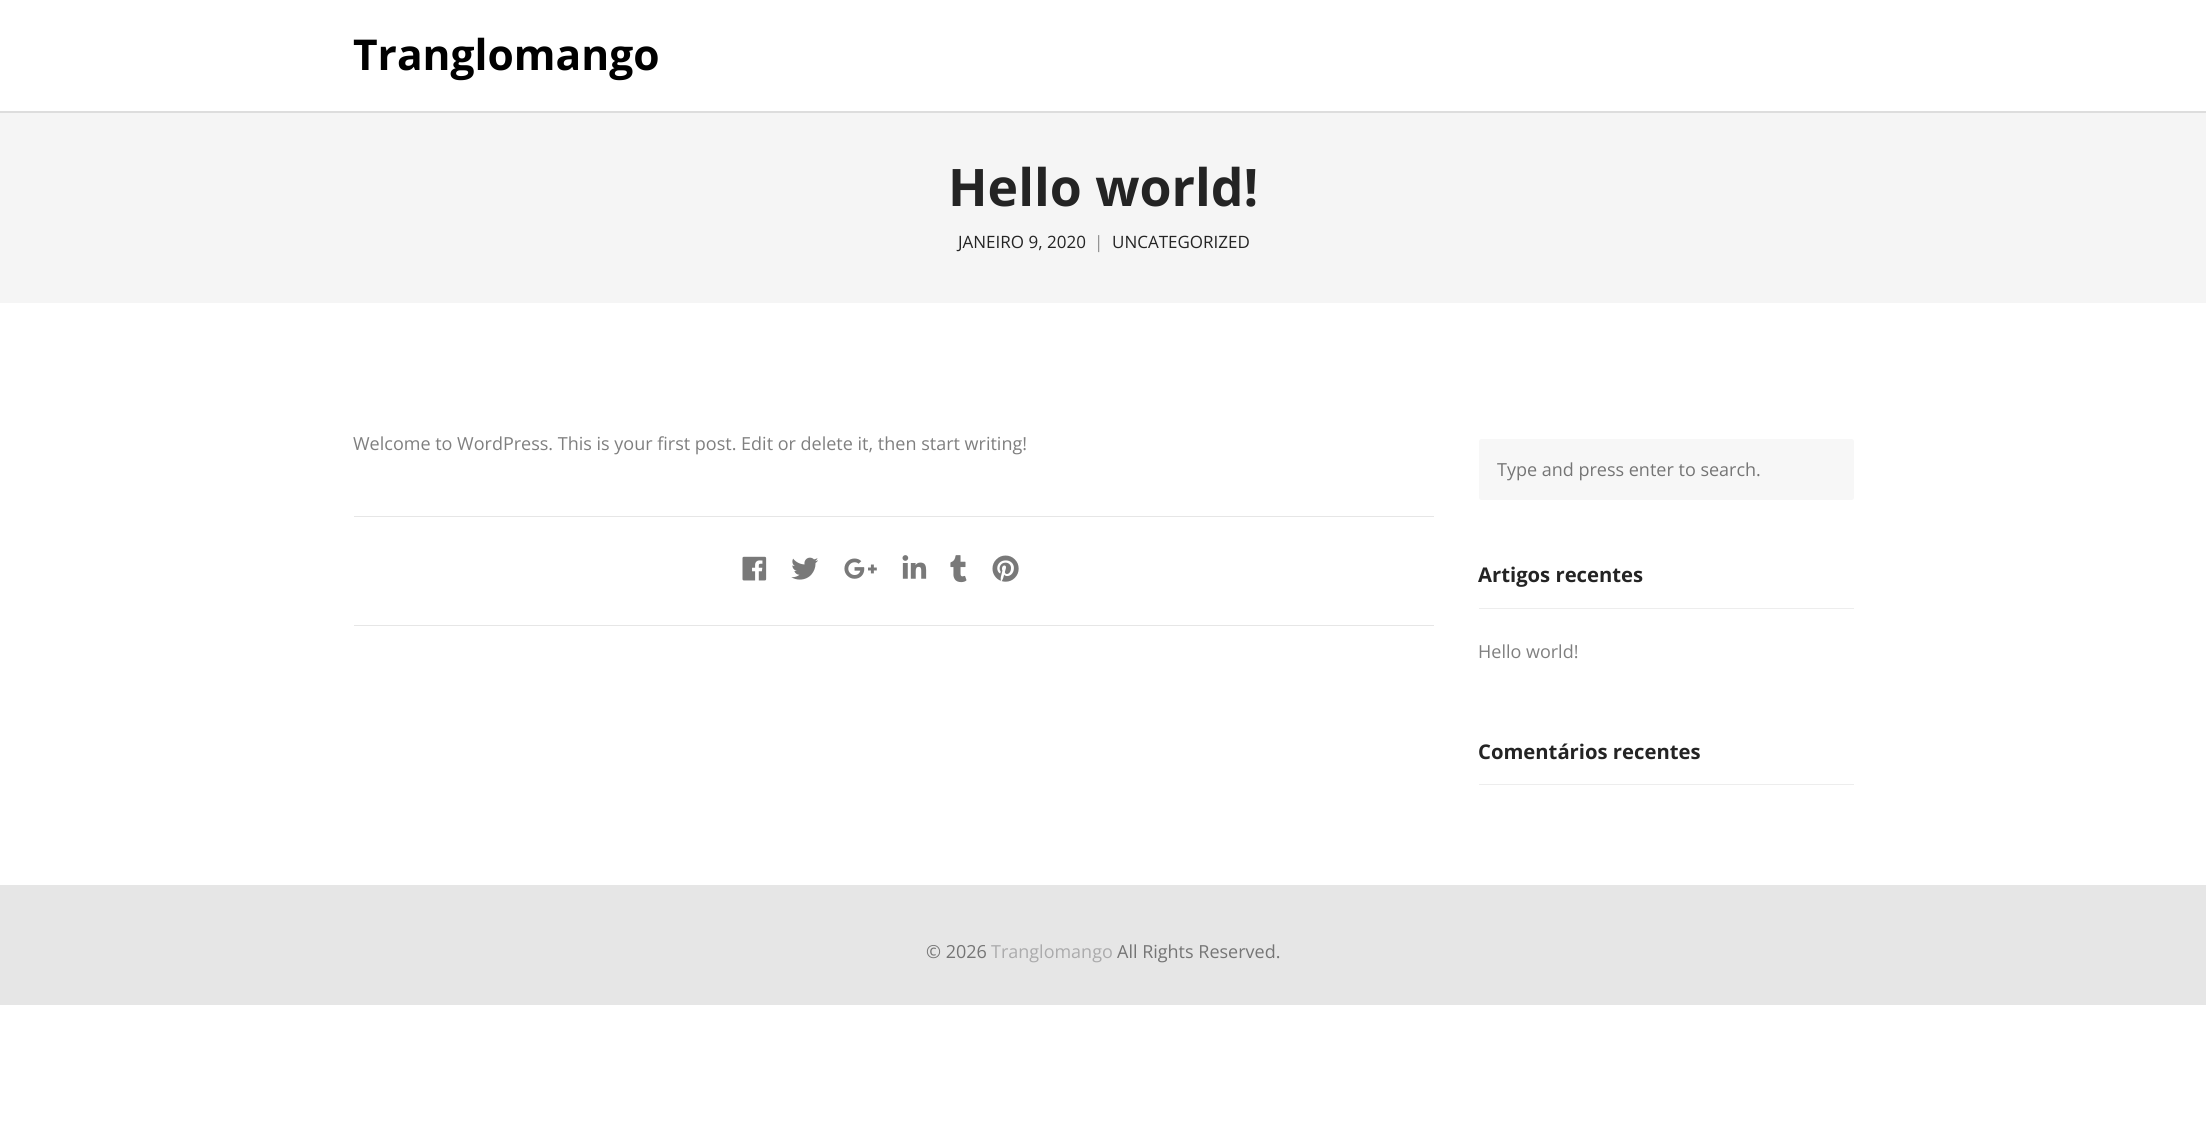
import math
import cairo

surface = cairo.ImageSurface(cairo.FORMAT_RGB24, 2206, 1129)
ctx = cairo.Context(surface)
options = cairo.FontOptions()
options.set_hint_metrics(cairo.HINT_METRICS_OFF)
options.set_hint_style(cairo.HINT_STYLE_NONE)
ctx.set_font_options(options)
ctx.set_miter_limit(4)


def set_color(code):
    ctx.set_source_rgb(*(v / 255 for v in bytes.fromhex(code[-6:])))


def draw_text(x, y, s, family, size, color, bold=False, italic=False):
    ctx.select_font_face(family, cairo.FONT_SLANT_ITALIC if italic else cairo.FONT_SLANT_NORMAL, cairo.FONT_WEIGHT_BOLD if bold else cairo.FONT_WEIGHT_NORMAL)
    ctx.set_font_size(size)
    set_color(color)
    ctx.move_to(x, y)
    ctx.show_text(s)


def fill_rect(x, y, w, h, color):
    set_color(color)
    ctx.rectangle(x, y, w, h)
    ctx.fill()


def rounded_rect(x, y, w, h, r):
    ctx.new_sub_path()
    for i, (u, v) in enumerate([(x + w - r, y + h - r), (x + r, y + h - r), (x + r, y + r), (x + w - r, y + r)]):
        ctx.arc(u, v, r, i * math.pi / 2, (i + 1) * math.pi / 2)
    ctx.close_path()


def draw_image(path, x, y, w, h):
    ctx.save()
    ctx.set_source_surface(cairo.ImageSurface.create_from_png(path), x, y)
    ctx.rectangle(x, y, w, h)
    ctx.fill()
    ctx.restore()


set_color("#ffffff")
ctx.paint()
fill_rect(0, 111, 2206, 2, "#dddddd")
draw_text(353, 70, "Tranglomango", "Open Sans", 42.5, "#000000", bold=True)
fill_rect(0, 113, 2206, 190, "#f5f5f5")
draw_text(948, 206, "Hello world!", "Open Sans", 51.75, "#242424", bold=True)
draw_text(958, 248, "JANEIRO 9, 2020", "Open Sans", 17, "#242424")
draw_text(1094, 248, "|", "Open Sans", 17, "#8d8d8d")
draw_text(1112, 248, "UNCATEGORIZED", "Open Sans", 17, "#242424")
draw_text(353, 450, "Welcome to WordPress. This is your first post. Edit or delete it, then start writing!", "Open Sans", 18, "#7f7f7f")
fill_rect(354, 516, 1080, 1, "#e6e6e6")
fill_rect(354, 625, 1080, 1, "#e6e6e6")
draw_image("assets/img1.png", 742, 556, 25, 25)
draw_image("assets/img2.png", 791, 557, 27, 23)
draw_image("assets/img3.png", 844, 558, 33, 21)
draw_image("assets/img4.png", 902, 555, 25, 24)
draw_image("assets/img5.png", 950, 555, 17, 28)
draw_image("assets/img6.png", 992, 555, 27, 27)
set_color("#f7f7f7")
rounded_rect(1479, 439, 375, 61, 2.5)
ctx.fill()
draw_text(1497, 476, "Type and press enter to search.", "Open Sans", 18, "#757575")
fill_rect(1479, 608, 375, 1, "#ededed")
draw_text(1478, 582, "Artigos recentes", "Open Sans", 20.25, "#242424", bold=True)
draw_text(1478, 658, "Hello world!", "Open Sans", 18, "#7f7f7f")
fill_rect(1479, 784, 375, 1, "#ededed")
draw_text(1478, 759, "Comentários recentes", "Open Sans", 20.25, "#242424", bold=True)
fill_rect(0, 885, 2206, 120, "#e6e6e6")
draw_text(926, 958, "© 2026", "Open Sans", 18, "#757575")
draw_text(991, 958, "Tranglomango", "Open Sans", 18, "#ababac")
draw_text(1117, 958, "All Rights Reserved.", "Open Sans", 18, "#757575")
surface.write_to_png("output.png")
